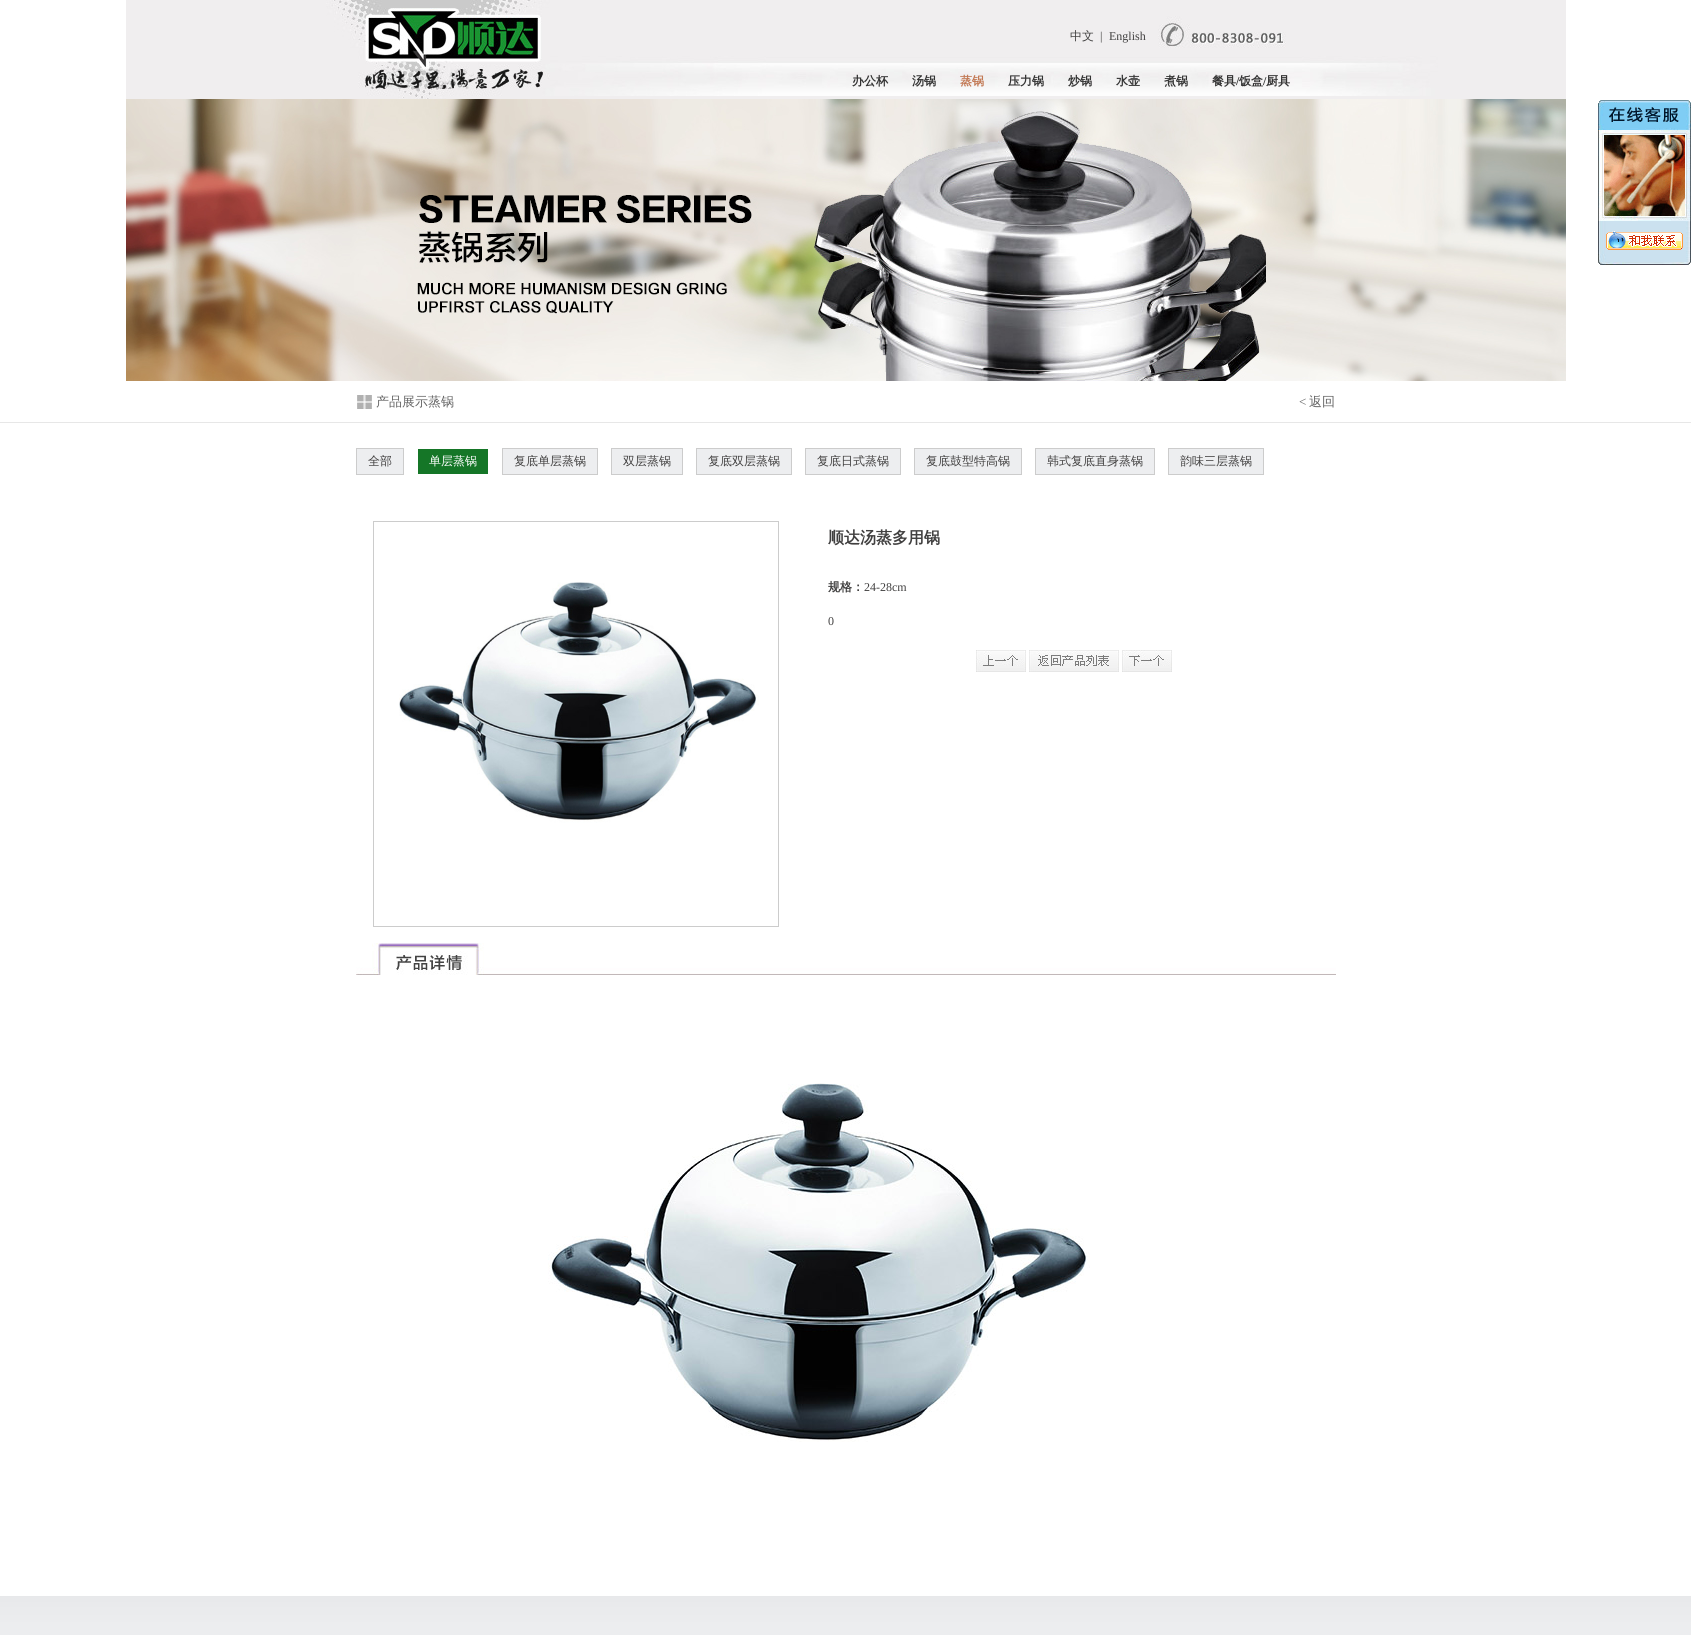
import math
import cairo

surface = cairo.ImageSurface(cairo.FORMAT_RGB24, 1691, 1635)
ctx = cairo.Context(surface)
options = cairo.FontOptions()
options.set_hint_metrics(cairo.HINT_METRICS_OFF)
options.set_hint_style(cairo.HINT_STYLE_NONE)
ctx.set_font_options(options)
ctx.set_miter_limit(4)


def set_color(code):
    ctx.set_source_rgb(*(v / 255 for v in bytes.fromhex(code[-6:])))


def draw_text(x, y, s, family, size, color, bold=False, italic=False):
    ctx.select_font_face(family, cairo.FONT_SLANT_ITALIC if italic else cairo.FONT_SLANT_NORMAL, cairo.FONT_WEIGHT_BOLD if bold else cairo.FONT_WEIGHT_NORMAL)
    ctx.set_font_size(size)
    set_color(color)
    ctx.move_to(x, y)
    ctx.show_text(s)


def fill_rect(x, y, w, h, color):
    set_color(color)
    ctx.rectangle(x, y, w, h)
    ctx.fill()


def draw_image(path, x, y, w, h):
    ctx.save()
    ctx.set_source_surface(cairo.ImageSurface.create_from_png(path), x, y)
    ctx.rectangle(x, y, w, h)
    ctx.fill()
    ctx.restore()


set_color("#ffffff")
ctx.paint()
draw_image("assets/img1.png", 126, 0, 1440, 99)
draw_text(1070, 40, "中文", "WenQuanYi Zen Hei Medium", 12, "#414040")
draw_text(1100, 40, "|", "Liberation Serif", 12, "#414040")
draw_text(1109, 40, "English", "Liberation Serif", 12, "#414040")
draw_text(852, 85, "办公杯", "WenQuanYi Zen Hei", 12, "#333333", bold=True)
draw_text(912, 85, "汤锅", "WenQuanYi Zen Hei", 12, "#333333", bold=True)
draw_text(960, 85, "蒸锅", "WenQuanYi Zen Hei", 12, "#c27853", bold=True)
draw_text(1008, 85, "压力锅", "WenQuanYi Zen Hei", 12, "#333333", bold=True)
draw_text(1068, 85, "炒锅", "WenQuanYi Zen Hei", 12, "#333333", bold=True)
draw_text(1116, 85, "水壶", "WenQuanYi Zen Hei", 12, "#333333", bold=True)
draw_text(1164, 85, "煮锅", "WenQuanYi Zen Hei", 12, "#333333", bold=True)
draw_text(1212, 85, "餐具", "WenQuanYi Zen Hei", 12, "#333333", bold=True)
draw_text(1236, 85, "/", "Liberation Serif", 12, "#333333", bold=True)
draw_text(1239, 85, "饭盒", "WenQuanYi Zen Hei", 12, "#333333", bold=True)
draw_text(1263, 85, "/", "Liberation Serif", 12, "#333333", bold=True)
draw_text(1266, 85, "厨具", "WenQuanYi Zen Hei", 12, "#333333", bold=True)
draw_image("assets/img2.png", 126, 99, 1440, 282)
draw_image("assets/img3.png", 1598, 100, 93, 121)
draw_image("assets/img4.png", 1598, 221, 93, 29)
draw_image("assets/img5.png", 1606, 231, 77, 19)
draw_image("assets/img6.png", 1598, 250, 93, 15)
fill_rect(0, 422, 1691, 1, "#e7e7e7")
draw_image("assets/img7.png", 357, 395, 15, 14)
draw_text(376, 406, "产品展示蒸锅", "WenQuanYi Zen Hei Medium", 13, "#646464")
draw_text(1299, 406, "<", "Liberation Serif", 13, "#646464")
draw_text(1309, 406, "返回", "WenQuanYi Zen Hei Medium", 13, "#646464")
set_color("#edeef0")
ctx.rectangle(356.5, 448.5, 47, 26)
ctx.fill_preserve()
set_color("#cccccc")
ctx.set_line_width(1)
ctx.stroke()
draw_text(368, 465, "全部", "WenQuanYi Zen Hei Medium", 12, "#414040")
fill_rect(418, 449, 70, 25, "#157627")
draw_text(429, 465, "单层蒸锅", "WenQuanYi Zen Hei Medium", 12, "#ffffff")
set_color("#edeef0")
ctx.rectangle(502.5, 448.5, 95, 26)
ctx.fill_preserve()
set_color("#cccccc")
ctx.stroke()
draw_text(514, 465, "复底单层蒸锅", "WenQuanYi Zen Hei Medium", 12, "#414040")
set_color("#edeef0")
ctx.rectangle(611.5, 448.5, 71, 26)
ctx.fill_preserve()
set_color("#cccccc")
ctx.stroke()
draw_text(623, 465, "双层蒸锅", "WenQuanYi Zen Hei Medium", 12, "#414040")
set_color("#edeef0")
ctx.rectangle(696.5, 448.5, 95, 26)
ctx.fill_preserve()
set_color("#cccccc")
ctx.stroke()
draw_text(708, 465, "复底双层蒸锅", "WenQuanYi Zen Hei Medium", 12, "#414040")
set_color("#edeef0")
ctx.rectangle(805.5, 448.5, 95, 26)
ctx.fill_preserve()
set_color("#cccccc")
ctx.stroke()
draw_text(817, 465, "复底日式蒸锅", "WenQuanYi Zen Hei Medium", 12, "#414040")
set_color("#edeef0")
ctx.rectangle(914.5, 448.5, 107, 26)
ctx.fill_preserve()
set_color("#cccccc")
ctx.stroke()
draw_text(926, 465, "复底鼓型特高锅", "WenQuanYi Zen Hei Medium", 12, "#414040")
set_color("#edeef0")
ctx.rectangle(1035.5, 448.5, 119, 26)
ctx.fill_preserve()
set_color("#cccccc")
ctx.stroke()
draw_text(1047, 465, "韩式复底直身蒸锅", "WenQuanYi Zen Hei Medium", 12, "#414040")
set_color("#edeef0")
ctx.rectangle(1168.5, 448.5, 95, 26)
ctx.fill_preserve()
set_color("#cccccc")
ctx.stroke()
draw_text(1180, 465, "韵味三层蒸锅", "WenQuanYi Zen Hei Medium", 12, "#414040")
ctx.rectangle(373.5, 521.5, 405, 405)
set_color("#cccccc")
ctx.stroke()
draw_image("assets/img8.png", 399, 582, 360, 241)
draw_text(828, 543, "顺达汤蒸多用锅", "WenQuanYi Zen Hei", 16, "#414040", bold=True)
draw_text(828, 591, "规格：", "WenQuanYi Zen Hei", 12, "#414040", bold=True)
draw_text(864, 591, "24-28cm", "Liberation Serif", 12, "#414040")
draw_text(828, 625, "0", "Liberation Serif", 12, "#414040")
draw_image("assets/img9.png", 976, 650, 50, 22)
draw_image("assets/img10.png", 1029, 650, 90, 22)
draw_image("assets/img11.png", 1122, 650, 50, 22)
draw_image("assets/img12.png", 356, 943, 980, 32)
draw_image("assets/img13.png", 548, 1083, 542, 359)
draw_image("assets/img14.png", 0, 1596, 1691, 39)
surface.write_to_png("output.png")
